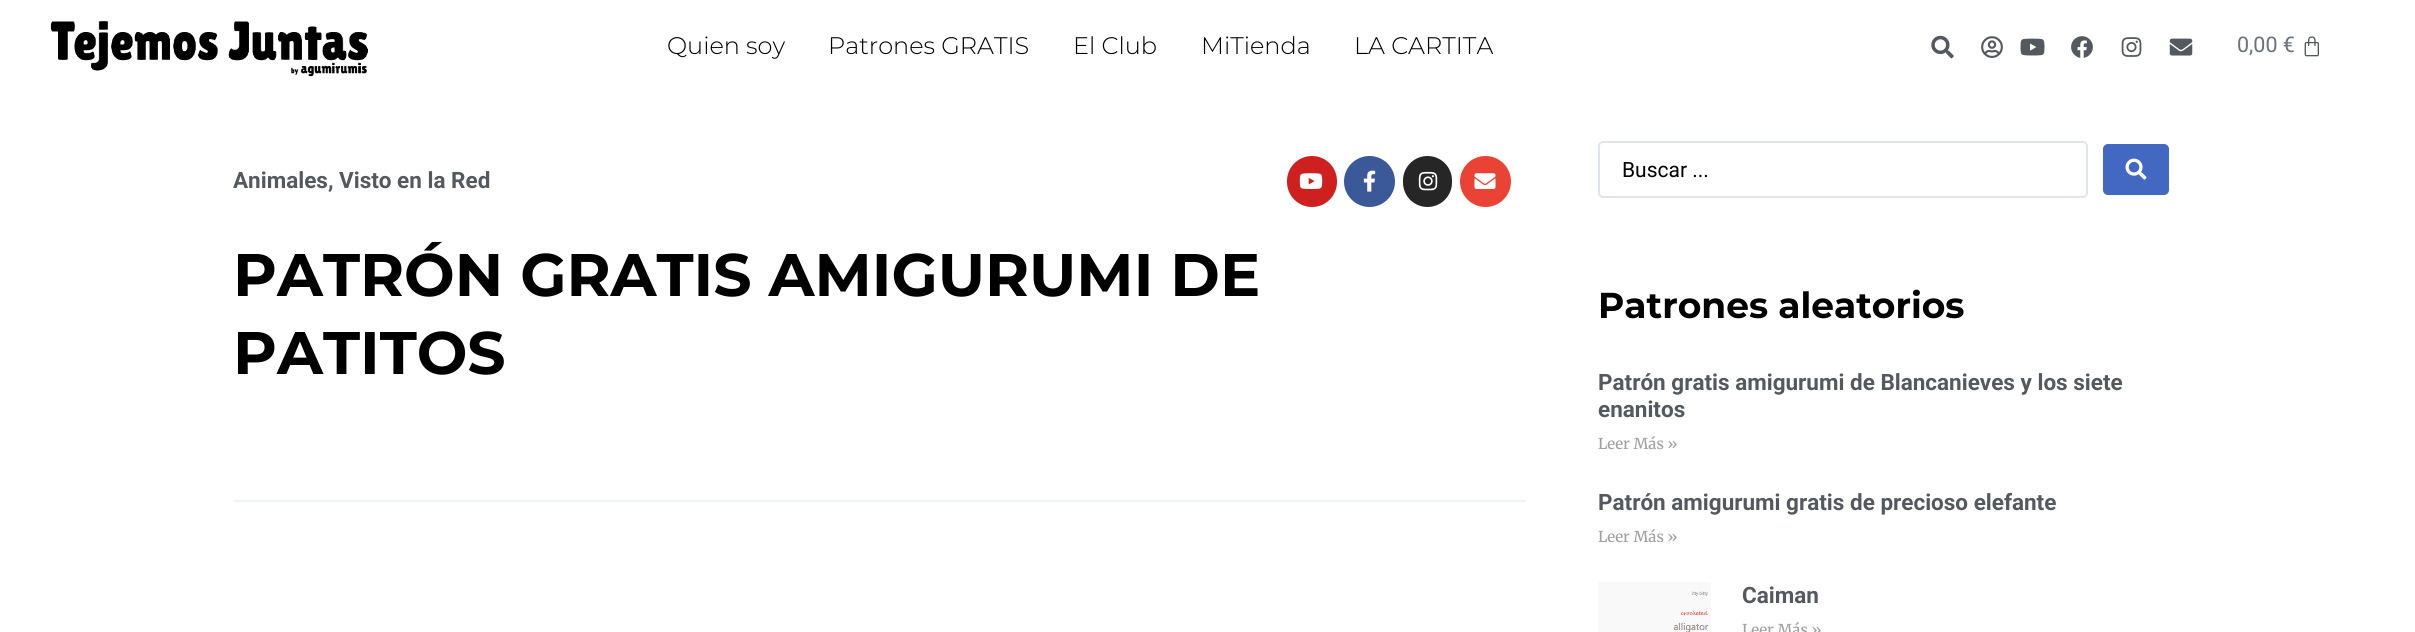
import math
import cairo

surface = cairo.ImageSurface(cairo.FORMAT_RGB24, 2415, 632)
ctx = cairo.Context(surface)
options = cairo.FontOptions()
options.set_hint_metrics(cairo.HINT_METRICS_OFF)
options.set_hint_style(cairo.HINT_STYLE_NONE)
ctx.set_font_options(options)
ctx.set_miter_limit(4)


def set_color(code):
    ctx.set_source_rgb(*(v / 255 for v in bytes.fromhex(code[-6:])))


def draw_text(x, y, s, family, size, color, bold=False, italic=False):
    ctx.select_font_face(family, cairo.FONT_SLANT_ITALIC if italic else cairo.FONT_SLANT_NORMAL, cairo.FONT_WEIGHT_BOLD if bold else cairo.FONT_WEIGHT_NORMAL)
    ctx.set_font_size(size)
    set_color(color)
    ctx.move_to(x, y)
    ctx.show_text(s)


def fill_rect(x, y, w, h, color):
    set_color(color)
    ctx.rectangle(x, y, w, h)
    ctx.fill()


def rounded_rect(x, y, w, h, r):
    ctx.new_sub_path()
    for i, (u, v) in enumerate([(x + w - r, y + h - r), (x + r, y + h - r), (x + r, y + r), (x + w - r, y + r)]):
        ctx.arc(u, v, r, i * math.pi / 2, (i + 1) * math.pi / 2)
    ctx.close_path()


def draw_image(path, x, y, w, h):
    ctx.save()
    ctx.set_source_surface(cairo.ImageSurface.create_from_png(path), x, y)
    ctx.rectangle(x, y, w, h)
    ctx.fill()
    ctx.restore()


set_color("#ffffff")
ctx.paint()
draw_image("assets/img1.png", 50, 20, 318, 57)
draw_text(667, 54, "Quien soy", "Montserrat Light", 24, "#000000")
draw_text(828, 54, "Patrones GRATIS", "Montserrat Light", 24, "#000000")
draw_text(1073, 54, "El Club", "Montserrat Light", 24, "#000000")
draw_text(1201, 54, "MiTienda", "Montserrat Light", 24, "#000000")
draw_text(1354, 54, "LA CARTITA", "Montserrat Light", 24, "#000000")
draw_image("assets/img2.png", 1931, 35, 23, 24)
draw_image("assets/img3.png", 1981, 36, 22, 22)
draw_image("assets/img4.png", 2020, 38, 25, 18)
draw_image("assets/img5.png", 2071, 36, 22, 22)
draw_image("assets/img6.png", 2121, 37, 21, 20)
draw_image("assets/img7.png", 2169, 38, 24, 18)
draw_text(2237, 52, "0,00 €", "Roboto", 21.5, "#69727d")
draw_image("assets/img8.png", 2304, 36, 15, 21)
draw_text(233, 188, "Animales, Visto en la Red", "Roboto", 22.5, "#54595f", bold=True)
set_color("#cd201f")
rounded_rect(1287, 156, 50, 51, 25)
ctx.fill()
draw_image("assets/img9.png", 1299, 173, 24, 16)
set_color("#3b5998")
ctx.arc(1369.5, 181.5, 25.5, 0, 2 * math.pi)
ctx.fill()
draw_image("assets/img10.png", 1363, 170, 13, 22)
set_color("#262626")
rounded_rect(1403, 156, 49, 51, 24.5)
ctx.fill()
draw_image("assets/img11.png", 1418, 171, 20, 20)
set_color("#ea4335")
ctx.arc(1485.5, 181.5, 25.5, 0, 2 * math.pi)
ctx.fill()
draw_image("assets/img12.png", 1474, 173, 22, 16)
draw_text(233, 296, "PATRÓN GRATIS AMIGURUMI DE", "Montserrat", 60, "#000000", bold=True)
draw_text(233, 374, "PATITOS", "Montserrat", 60, "#000000", bold=True)
fill_rect(233, 500, 1293, 2, "#f1f4f6")
rounded_rect(1599, 142, 488, 55, 4)
set_color("#e1e5eb")
ctx.stroke()
draw_text(1622, 177, "Buscar ...", "Roboto", 21, "#000000")
set_color("#4268c1")
rounded_rect(2103, 144, 66, 51, 5)
ctx.fill()
draw_image("assets/img13.png", 2125, 158, 22, 22)
draw_text(1598, 318, "Patrones aleatorios", "Montserrat", 36, "#000000", bold=True)
draw_text(1598, 390, "Patrón gratis amigurumi de Blancanieves y los siete", "Roboto", 22.5, "#54595f", bold=True)
draw_text(1598, 417, "enanitos", "Roboto", 22.5, "#54595f", bold=True)
draw_text(1598, 449, "Leer Más »", "Merriweather Medium", 15, "#a0a0a0")
draw_text(1598, 510, "Patrón amigurumi gratis de precioso elefante", "Roboto", 22.5, "#54595f", bold=True)
draw_text(1598, 542, "Leer Más »", "Merriweather Medium", 15, "#a0a0a0")
draw_image("assets/img14.png", 1598, 582, 113, 50)
draw_text(1742, 603, "Caiman", "Roboto", 22.5, "#54595f", bold=True)
draw_text(1742, 635, "Leer Más »", "Merriweather Medium", 15, "#a0a0a0")
surface.write_to_png("output.png")
